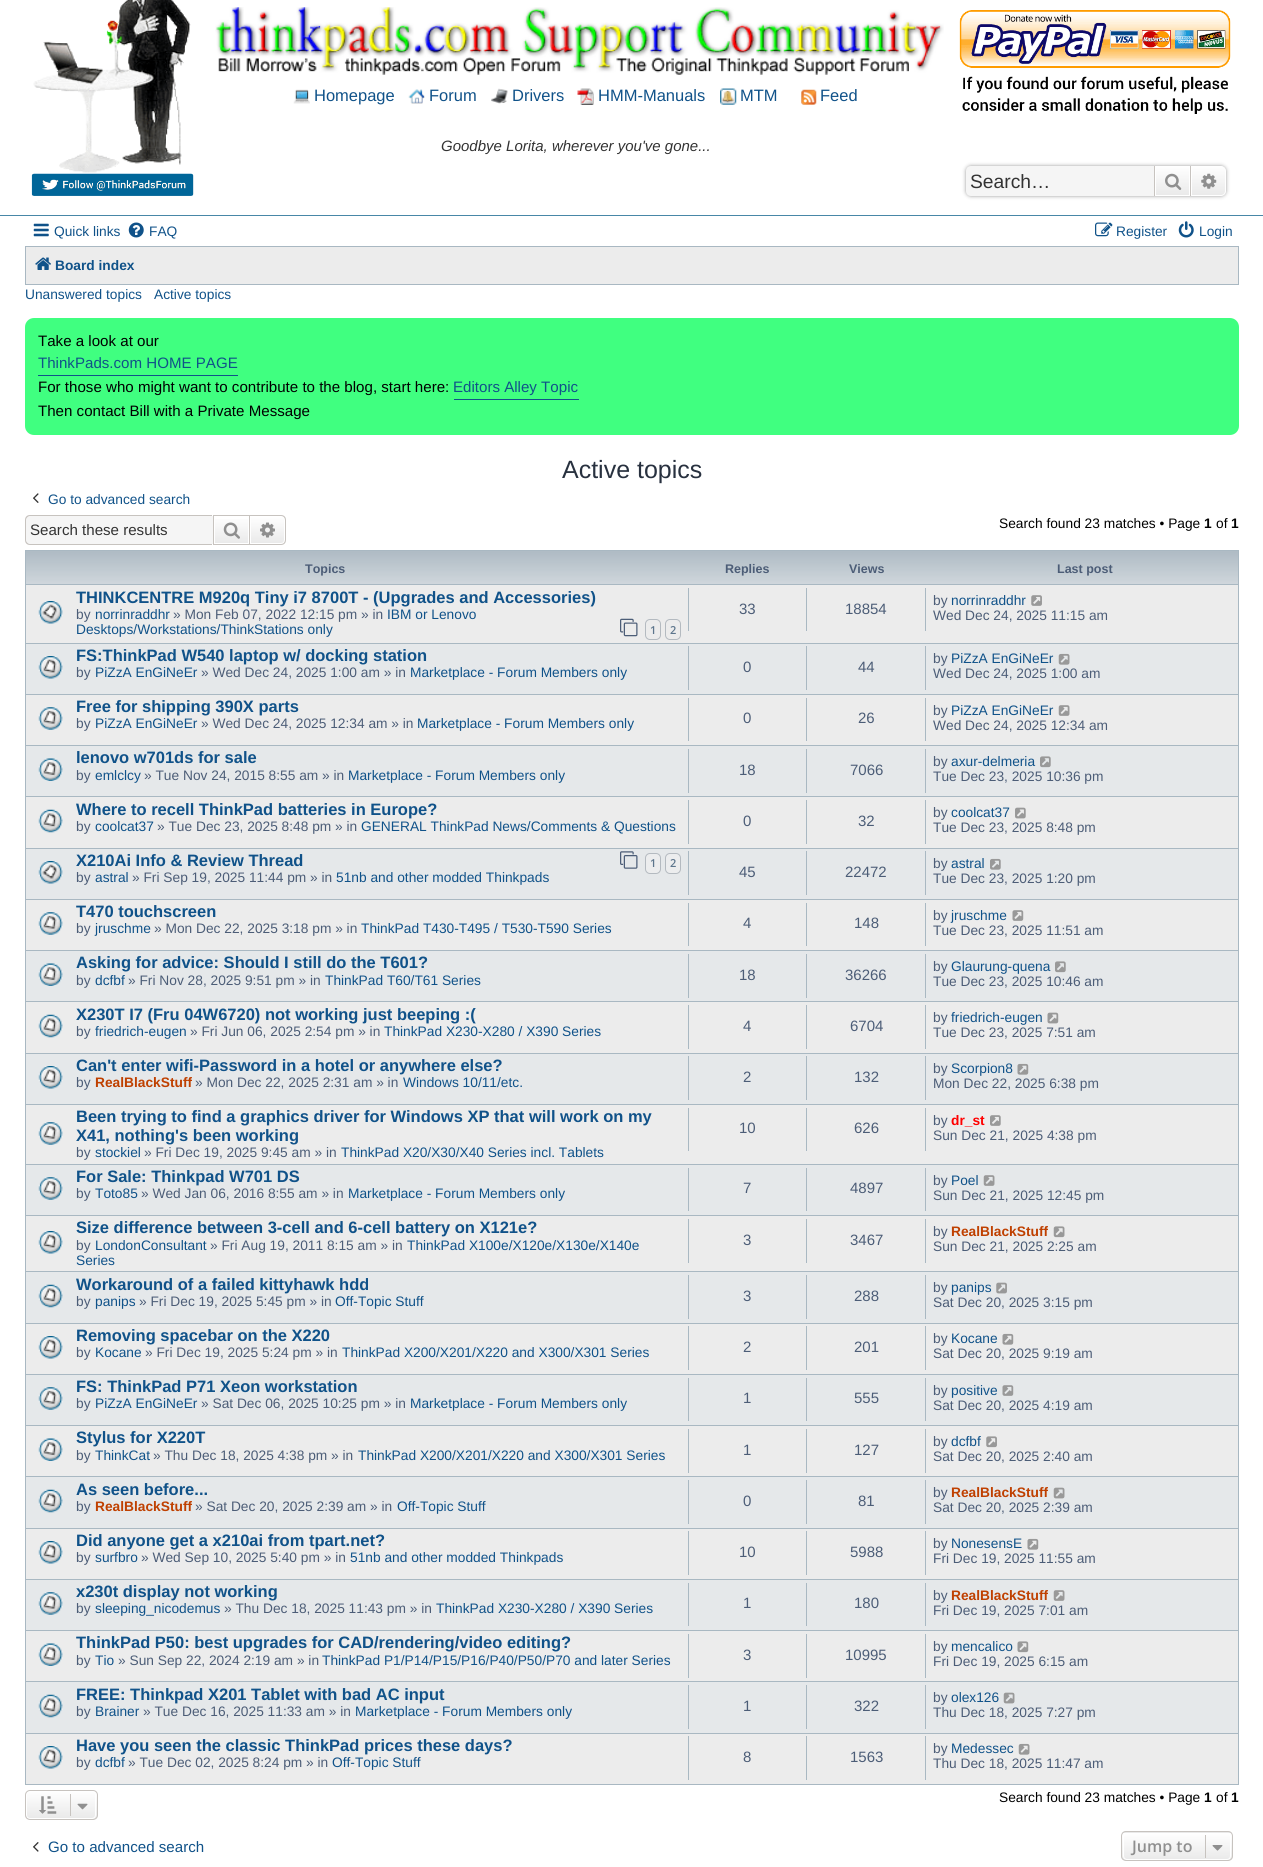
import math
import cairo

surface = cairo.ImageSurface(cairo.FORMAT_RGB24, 1263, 1867)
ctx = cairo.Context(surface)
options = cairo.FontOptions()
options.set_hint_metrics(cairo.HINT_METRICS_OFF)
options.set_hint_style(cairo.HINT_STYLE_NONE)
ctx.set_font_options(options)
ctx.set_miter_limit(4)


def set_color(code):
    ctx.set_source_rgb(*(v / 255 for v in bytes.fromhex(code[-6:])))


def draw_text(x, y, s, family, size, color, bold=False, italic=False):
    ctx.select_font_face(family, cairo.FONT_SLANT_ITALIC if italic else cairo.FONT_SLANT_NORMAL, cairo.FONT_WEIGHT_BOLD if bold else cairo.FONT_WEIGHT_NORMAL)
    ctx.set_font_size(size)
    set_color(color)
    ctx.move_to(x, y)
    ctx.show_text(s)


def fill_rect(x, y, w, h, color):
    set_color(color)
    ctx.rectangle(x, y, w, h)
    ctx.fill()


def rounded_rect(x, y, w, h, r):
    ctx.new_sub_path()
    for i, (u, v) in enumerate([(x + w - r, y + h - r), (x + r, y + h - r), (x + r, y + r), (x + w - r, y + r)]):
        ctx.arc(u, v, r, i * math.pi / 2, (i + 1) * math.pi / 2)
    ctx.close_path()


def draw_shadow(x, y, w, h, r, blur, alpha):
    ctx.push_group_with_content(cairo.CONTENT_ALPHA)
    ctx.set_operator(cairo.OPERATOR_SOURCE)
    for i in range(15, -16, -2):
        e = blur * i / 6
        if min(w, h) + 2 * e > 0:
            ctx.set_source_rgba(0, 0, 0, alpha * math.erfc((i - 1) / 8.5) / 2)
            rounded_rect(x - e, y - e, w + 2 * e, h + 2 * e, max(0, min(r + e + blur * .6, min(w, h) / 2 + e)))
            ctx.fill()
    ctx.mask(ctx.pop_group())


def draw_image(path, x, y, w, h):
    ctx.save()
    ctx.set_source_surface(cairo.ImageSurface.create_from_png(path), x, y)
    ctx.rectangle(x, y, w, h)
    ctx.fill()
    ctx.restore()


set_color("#ffffff")
ctx.paint()
fill_rect(0, 215, 1263, 1, "#4787a7")
draw_image("assets/img1.png", 33, 0, 158, 173)
draw_image("assets/img2.png", 31, 173, 163, 23)
draw_image("assets/img3.png", 215, 7, 729, 68)
draw_image("assets/img4.png", 293, 89, 17, 15)
draw_text(314, 101, "Homepage", "Liberation Sans", 16.5, "#105289")
draw_image("assets/img5.png", 408, 89, 17, 15)
draw_text(429, 101, "Forum", "Liberation Sans", 16.5, "#105289")
draw_image("assets/img6.png", 491, 88, 17, 16)
draw_text(512, 101, "Drivers", "Liberation Sans", 16.5, "#105289")
draw_image("assets/img7.png", 577, 88, 17, 17)
draw_text(598, 101, "HMM-Manuals", "Liberation Sans", 16.5, "#105289")
draw_image("assets/img8.png", 720, 88, 17, 17)
draw_text(740, 101, "MTM", "Liberation Sans", 16.5, "#105289")
draw_image("assets/img9.png", 801, 89, 16, 16)
draw_text(820, 101, "Feed", "Liberation Sans", 16.5, "#105289")
draw_text(441, 151, "Goodbye Lorita, wherever you've gone...", "Liberation Sans", 15, "#333333", italic=True)
draw_image("assets/img10.png", 959, 10, 272, 104)
set_color("#999999")
draw_shadow(966, 166, 260, 30, 5, 2, 1)
set_color("#f5f5f5")
ctx.new_path()
ctx.move_to(971, 166)
ctx.line_to(1154, 166)
ctx.line_to(1154, 196)
ctx.line_to(971, 196)
ctx.curve_to(968, 196, 966, 194, 966, 191)
ctx.line_to(966, 171)
ctx.curve_to(966, 168, 968, 166, 971, 166)
ctx.close_path()
ctx.fill()
draw_text(970, 188, "Search…", "Liberation Sans", 19.25, "#333333")
gradient = cairo.LinearGradient(1173, 166, 1173, 196)
gradient.add_color_stop_rgba(0, 1, 1, 1, 1)
gradient.add_color_stop_rgba(1, 0.914, 0.914, 0.914, 1)
ctx.set_source(gradient)
ctx.rectangle(1156, 167, 33, 28)
ctx.fill()
ctx.rectangle(1155.5, 166.5, 34, 29)
set_color("#ffffff")
ctx.set_line_width(1)
ctx.stroke()
fill_rect(1190, 166, 1, 30, "#c7c3bf")
fill_rect(1154, 166, 1, 30, "#c7c3bf")
draw_image("assets/img11.png", 1165, 173, 17, 17)
gradient = cairo.LinearGradient(1209, 166, 1209, 196)
gradient.add_color_stop_rgba(0, 1, 1, 1, 1)
gradient.add_color_stop_rgba(1, 0.914, 0.914, 0.914, 1)
ctx.set_source(gradient)
ctx.new_path()
ctx.move_to(1191.5, 166.5)
ctx.line_to(1221, 166.5)
ctx.curve_to(1223.5, 166.5, 1225.5, 168.5, 1225.5, 171)
ctx.line_to(1225.5, 191)
ctx.curve_to(1225.5, 193.5, 1223.5, 195.5, 1221, 195.5)
ctx.line_to(1191.5, 195.5)
ctx.close_path()
ctx.fill_preserve()
set_color("#ffffff")
ctx.stroke()
draw_image("assets/img12.png", 1201, 173, 16, 16)
draw_image("assets/img13.png", 33, 223, 16, 14)
draw_text(54, 236, "Quick links", "Liberation Sans", 13.75, "#105289")
draw_image("assets/img14.png", 128, 222, 16, 16)
draw_text(149, 236, "FAQ", "Liberation Sans", 13.75, "#105289")
draw_image("assets/img15.png", 1095, 222, 18, 15)
draw_text(1116, 236, "Register", "Liberation Sans", 13.75, "#105289")
draw_image("assets/img16.png", 1178, 221, 16, 17)
draw_text(1199, 236, "Login", "Liberation Sans", 13.75, "#105289")
set_color("#ececec")
ctx.rectangle(25.5, 246.5, 1213, 38)
ctx.fill_preserve()
set_color("#a9b8c2")
ctx.stroke()
draw_image("assets/img17.png", 35, 257, 16, 13)
draw_text(55, 270, "Board index", "Liberation Sans", 13.75, "#105289", bold=True)
draw_text(25, 299, "Unanswered topics", "Liberation Sans", 13.75, "#105289")
draw_text(154, 299, "Active topics", "Liberation Sans", 13.75, "#105289")
set_color("#40ff80")
rounded_rect(25, 318, 1214, 117, 9)
ctx.fill()
draw_text(38, 346, "Take a look at our", "Liberation Sans", 15.1, "#000000")
fill_rect(38, 375, 200, 1, "#105289")
draw_text(38, 368, "ThinkPads.com HOME PAGE", "Liberation Sans", 15.1, "#105289")
draw_text(38, 392, "For those who might want to contribute to the blog, start here:", "Liberation Sans", 15.1, "#000000")
fill_rect(454, 399, 125, 1, "#105289")
draw_text(453, 392, "Editors Alley Topic", "Liberation Sans", 15.1, "#105289")
draw_text(38, 416, "Then contact Bill with a Private Message", "Liberation Sans", 15.1, "#000000")
draw_text(562, 478, "Active topics", "Liberation Sans", 25, "#28313f")
draw_image("assets/img18.png", 33, 493, 6, 10)
draw_text(48, 504, "Go to advanced search", "Liberation Sans", 13.75, "#105289")
set_color("#f5f5f5")
ctx.new_path()
ctx.move_to(30, 516)
ctx.line_to(213, 516)
ctx.line_to(213, 544)
ctx.line_to(30, 544)
ctx.curve_to(28, 544, 26, 542, 26, 540)
ctx.line_to(26, 520)
ctx.curve_to(26, 518, 28, 516, 30, 516)
ctx.close_path()
ctx.fill()
set_color("#c7c3bf")
ctx.set_fill_rule(cairo.FILL_RULE_EVEN_ODD)
ctx.new_path()
ctx.move_to(30, 515)
ctx.line_to(212, 515)
ctx.line_to(212, 545)
ctx.line_to(30, 545)
ctx.curve_to(27, 545, 25, 543, 25, 540)
ctx.line_to(25, 520)
ctx.curve_to(25, 517, 27, 515, 30, 515)
ctx.close_path()
ctx.move_to(30, 516)
ctx.line_to(212, 516)
ctx.line_to(212, 544)
ctx.line_to(30, 544)
ctx.curve_to(28, 544, 26, 542, 26, 540)
ctx.line_to(26, 520)
ctx.curve_to(26, 518, 28, 516, 30, 516)
ctx.close_path()
ctx.fill()
draw_text(30, 535, "Search these results", "Liberation Sans", 15.1, "#333333")
gradient = cairo.LinearGradient(231, 516, 231, 544)
gradient.add_color_stop_rgba(0, 1, 1, 1, 1)
gradient.add_color_stop_rgba(1, 0.914, 0.914, 0.914, 1)
ctx.set_source(gradient)
ctx.rectangle(215, 519, 33, 24)
ctx.fill()
ctx.rectangle(213.5, 515.5, 36, 29)
set_color("#c7c3bf")
ctx.stroke()
draw_image("assets/img19.png", 223, 522, 17, 17)
gradient = cairo.LinearGradient(268, 516, 268, 544)
gradient.add_color_stop_rgba(0, 1, 1, 1, 1)
gradient.add_color_stop_rgba(1, 0.914, 0.914, 0.914, 1)
ctx.set_source(gradient)
ctx.new_path()
ctx.move_to(250.5, 516.5)
ctx.line_to(281, 516.5)
ctx.curve_to(283, 516.5, 284.5, 518, 284.5, 520)
ctx.line_to(284.5, 540)
ctx.curve_to(284.5, 542, 283, 543.5, 281, 543.5)
ctx.line_to(250.5, 543.5)
ctx.close_path()
ctx.fill_preserve()
set_color("#ffffff")
ctx.stroke()
set_color("#c7c3bf")
ctx.new_path()
ctx.move_to(250, 515)
ctx.line_to(281, 515)
ctx.curve_to(284, 515, 286, 517, 286, 520)
ctx.line_to(286, 540)
ctx.curve_to(286, 543, 284, 545, 281, 545)
ctx.line_to(250, 545)
ctx.close_path()
ctx.move_to(250, 516)
ctx.line_to(281, 516)
ctx.curve_to(283.5, 516, 285, 518, 285, 520)
ctx.line_to(285, 540)
ctx.curve_to(285, 542, 283.5, 544, 281, 544)
ctx.line_to(250, 544)
ctx.close_path()
ctx.fill()
draw_image("assets/img20.png", 260, 522, 15, 16)
draw_text(999, 528, "Search found 23 matches • Page", "Liberation Sans", 13.75, "#000000")
draw_text(1204, 528, "1", "Liberation Sans", 13.75, "#000000", bold=True)
draw_text(1216, 528, "of", "Liberation Sans", 13.75, "#000000")
draw_text(1231, 528, "1", "Liberation Sans", 13.75, "#000000", bold=True)
fill_rect(26, 695, 1212, 1089, "#ececec")
draw_image("assets/img21.png", 26, 551, 1212, 33)
ctx.rectangle(25.5, 550.5, 1213, 1234)
set_color("#a9b8c2")
ctx.stroke()
draw_text(305, 573, "Topics", "Liberation Sans", 12.5, "#4c5d77", bold=True)
draw_text(725, 573, "Replies", "Liberation Sans", 12.5, "#4c5d77", bold=True)
draw_text(849, 573, "Views", "Liberation Sans", 12.5, "#4c5d77", bold=True)
draw_text(1057, 573, "Last post", "Liberation Sans", 12.5, "#4c5d77", bold=True)
fill_rect(26, 585, 1212, 58, "#ececec")
fill_rect(26, 584, 1212, 1, "#a9b8c2")
draw_image("assets/img22.png", 38, 601, 25, 23)
draw_text(76, 603, "THINKCENTRE M920q Tiny i7 8700T - (Upgrades and Accessories)", "Liberation Sans", 16.5, "#105289", bold=True)
draw_text(76, 619, "by", "Liberation Sans", 13.75, "#4c5d77")
draw_text(95, 619, "norrinraddhr", "Liberation Sans", 13.75, "#105289")
draw_text(173, 619, "» Mon Feb 07, 2022 12:15 pm » in", "Liberation Sans", 13.75, "#4c5d77")
draw_text(387, 619, "IBM or Lenovo", "Liberation Sans", 13.75, "#105289")
draw_text(76, 634, "Desktops/Workstations/ThinkStations only", "Liberation Sans", 13.75, "#105289")
draw_image("assets/img23.png", 620, 618, 18, 19)
rounded_rect(645.5, 619.5, 15, 20, 4.5)
set_color("#b4bac0")
ctx.stroke()
draw_text(650, 634, "1", "Open Sans SemiBold", 11, "#5c758c")
rounded_rect(665.5, 619.5, 15, 20, 4.5)
set_color("#b4bac0")
ctx.stroke()
draw_text(670, 634, "2", "Open Sans SemiBold", 11, "#5c758c")
fill_rect(688, 588, 1, 43, "#a9b8c2")
draw_text(739, 614, "33", "Liberation Sans", 15, "#4c5d77")
fill_rect(806, 588, 1, 43, "#a9b8c2")
draw_text(845, 614, "18854", "Liberation Sans", 15, "#4c5d77")
fill_rect(925, 588, 1, 43, "#a9b8c2")
draw_text(933, 605, "by", "Liberation Sans", 13.75, "#4c5d77")
draw_text(951, 605, "norrinraddhr", "Liberation Sans", 13.75, "#105289")
draw_image("assets/img24.png", 1031, 595, 11, 11)
draw_text(933, 620, "Wed Dec 24, 2025 11:15 am", "Liberation Sans", 13.75, "#4c5d77")
fill_rect(26, 644, 1212, 50, "#e5e8ea")
fill_rect(26, 643, 1212, 1, "#a9b8c2")
draw_image("assets/img25.png", 38, 656, 25, 23)
draw_text(76, 661, "FS:ThinkPad W540 laptop w/ docking station", "Liberation Sans", 16.5, "#105289", bold=True)
draw_text(76, 677, "by", "Liberation Sans", 13.75, "#4c5d77")
draw_text(95, 677, "PiZzA EnGiNeEr", "Liberation Sans", 13.75, "#105289")
draw_text(201, 677, "» Wed Dec 24, 2025 1:00 am » in", "Liberation Sans", 13.75, "#4c5d77")
draw_text(410, 677, "Marketplace - Forum Members only", "Liberation Sans", 13.75, "#105289")
fill_rect(688, 646, 1, 44, "#a9b8c2")
draw_text(743, 672, "0", "Liberation Sans", 15, "#4c5d77")
fill_rect(806, 646, 1, 44, "#a9b8c2")
draw_text(858, 672, "44", "Liberation Sans", 15, "#4c5d77")
fill_rect(925, 646, 1, 44, "#a9b8c2")
draw_text(933, 663, "by", "Liberation Sans", 13.75, "#4c5d77")
draw_text(951, 663, "PiZzA EnGiNeEr", "Liberation Sans", 13.75, "#105289")
draw_image("assets/img26.png", 1058, 653, 12, 12)
draw_text(933, 678, "Wed Dec 24, 2025 1:00 am", "Liberation Sans", 13.75, "#4c5d77")
fill_rect(26, 694, 1212, 1, "#a9b8c2")
draw_image("assets/img27.png", 38, 707, 25, 23)
draw_text(76, 712, "Free for shipping 390X parts", "Liberation Sans", 16.5, "#105289", bold=True)
draw_text(76, 728, "by", "Liberation Sans", 13.75, "#4c5d77")
draw_text(95, 728, "PiZzA EnGiNeEr", "Liberation Sans", 13.75, "#105289")
draw_text(201, 728, "» Wed Dec 24, 2025 12:34 am » in", "Liberation Sans", 13.75, "#4c5d77")
draw_text(417, 728, "Marketplace - Forum Members only", "Liberation Sans", 13.75, "#105289")
fill_rect(688, 698, 1, 43, "#a9b8c2")
draw_text(743, 723, "0", "Liberation Sans", 15, "#4c5d77")
fill_rect(806, 698, 1, 43, "#a9b8c2")
draw_text(858, 723, "26", "Liberation Sans", 15, "#4c5d77")
fill_rect(925, 698, 1, 43, "#a9b8c2")
draw_text(933, 715, "by", "Liberation Sans", 13.75, "#4c5d77")
draw_text(951, 715, "PiZzA EnGiNeEr", "Liberation Sans", 13.75, "#105289")
draw_image("assets/img28.png", 1058, 705, 12, 11)
draw_text(933, 730, "Wed Dec 24, 2025 12:34 am", "Liberation Sans", 13.75, "#4c5d77")
fill_rect(26, 746, 1212, 50, "#e5e8ea")
fill_rect(26, 745, 1212, 1, "#a9b8c2")
draw_image("assets/img29.png", 38, 758, 25, 23)
draw_text(76, 763, "lenovo w701ds for sale", "Liberation Sans", 16.5, "#105289", bold=True)
draw_text(76, 780, "by", "Liberation Sans", 13.75, "#4c5d77")
draw_text(95, 780, "emlclcy", "Liberation Sans", 13.75, "#105289")
draw_text(144, 780, "» Tue Nov 24, 2015 8:55 am » in", "Liberation Sans", 13.75, "#4c5d77")
draw_text(348, 780, "Marketplace - Forum Members only", "Liberation Sans", 13.75, "#105289")
fill_rect(688, 749, 1, 44, "#a9b8c2")
draw_text(739, 775, "18", "Liberation Sans", 15, "#4c5d77")
fill_rect(806, 749, 1, 44, "#a9b8c2")
draw_text(850, 775, "7066", "Liberation Sans", 15, "#4c5d77")
fill_rect(925, 749, 1, 44, "#a9b8c2")
draw_text(933, 766, "by", "Liberation Sans", 13.75, "#4c5d77")
draw_text(951, 766, "axur-delmeria", "Liberation Sans", 13.75, "#105289")
draw_image("assets/img30.png", 1040, 756, 11, 12)
draw_text(933, 781, "Tue Dec 23, 2025 10:36 pm", "Liberation Sans", 13.75, "#4c5d77")
fill_rect(26, 796, 1212, 1, "#a9b8c2")
draw_image("assets/img31.png", 38, 809, 25, 24)
draw_text(76, 815, "Where to recell ThinkPad batteries in Europe?", "Liberation Sans", 16.5, "#105289", bold=True)
draw_text(76, 831, "by", "Liberation Sans", 13.75, "#4c5d77")
draw_text(95, 831, "coolcat37", "Liberation Sans", 13.75, "#105289")
draw_text(157, 831, "» Tue Dec 23, 2025 8:48 pm » in", "Liberation Sans", 13.75, "#4c5d77")
draw_text(361, 831, "GENERAL ThinkPad News/Comments & Questions", "Liberation Sans", 13.75, "#105289")
fill_rect(688, 800, 1, 44, "#a9b8c2")
draw_text(743, 826, "0", "Liberation Sans", 15, "#4c5d77")
fill_rect(806, 800, 1, 44, "#a9b8c2")
draw_text(858, 826, "32", "Liberation Sans", 15, "#4c5d77")
fill_rect(925, 800, 1, 44, "#a9b8c2")
draw_text(933, 817, "by", "Liberation Sans", 13.75, "#4c5d77")
draw_text(951, 817, "coolcat37", "Liberation Sans", 13.75, "#105289")
draw_image("assets/img32.png", 1015, 807, 11, 12)
draw_text(933, 832, "Tue Dec 23, 2025 8:48 pm", "Liberation Sans", 13.75, "#4c5d77")
fill_rect(26, 849, 1212, 50, "#e5e8ea")
fill_rect(26, 848, 1212, 1, "#a9b8c2")
draw_image("assets/img33.png", 38, 861, 25, 23)
draw_text(76, 866, "X210Ai Info & Review Thread", "Liberation Sans", 16.5, "#105289", bold=True)
draw_image("assets/img34.png", 620, 851, 18, 18)
set_color("#ecedee")
rounded_rect(645.5, 853.5, 15, 20, 4.5)
ctx.fill_preserve()
set_color("#b4bac0")
ctx.stroke()
draw_text(650, 867, "1", "Open Sans SemiBold", 11, "#5c758c")
set_color("#ecedee")
rounded_rect(665.5, 853.5, 15, 20, 4.5)
ctx.fill_preserve()
set_color("#b4bac0")
ctx.stroke()
draw_text(670, 867, "2", "Open Sans SemiBold", 11, "#5c758c")
draw_text(76, 882, "by", "Liberation Sans", 13.75, "#4c5d77")
draw_text(95, 882, "astral", "Liberation Sans", 13.75, "#105289")
draw_text(132, 882, "» Fri Sep 19, 2025 11:44 pm » in", "Liberation Sans", 13.75, "#4c5d77")
draw_text(336, 882, "51nb and other modded Thinkpads", "Liberation Sans", 13.75, "#105289")
fill_rect(688, 851, 1, 44, "#a9b8c2")
draw_text(739, 877, "45", "Liberation Sans", 15, "#4c5d77")
fill_rect(806, 851, 1, 44, "#a9b8c2")
draw_text(845, 877, "22472", "Liberation Sans", 15, "#4c5d77")
fill_rect(925, 851, 1, 44, "#a9b8c2")
draw_text(933, 868, "by", "Liberation Sans", 13.75, "#4c5d77")
draw_text(951, 868, "astral", "Liberation Sans", 13.75, "#105289")
draw_image("assets/img35.png", 990, 858, 11, 12)
draw_text(933, 883, "Tue Dec 23, 2025 1:20 pm", "Liberation Sans", 13.75, "#4c5d77")
fill_rect(26, 899, 1212, 1, "#a9b8c2")
draw_image("assets/img27.png", 38, 912, 25, 23)
draw_text(76, 917, "T470 touchscreen", "Liberation Sans", 16.5, "#105289", bold=True)
draw_text(76, 933, "by", "Liberation Sans", 13.75, "#4c5d77")
draw_text(95, 933, "jruschme", "Liberation Sans", 13.75, "#105289")
draw_text(154, 933, "» Mon Dec 22, 2025 3:18 pm » in", "Liberation Sans", 13.75, "#4c5d77")
draw_text(361, 933, "ThinkPad T430-T495 / T530-T590 Series", "Liberation Sans", 13.75, "#105289")
fill_rect(688, 903, 1, 43, "#a9b8c2")
draw_text(743, 928, "4", "Liberation Sans", 15, "#4c5d77")
fill_rect(806, 903, 1, 43, "#a9b8c2")
draw_text(854, 928, "148", "Liberation Sans", 15, "#4c5d77")
fill_rect(925, 903, 1, 43, "#a9b8c2")
draw_text(933, 920, "by", "Liberation Sans", 13.75, "#4c5d77")
draw_text(951, 920, "jruschme", "Liberation Sans", 13.75, "#105289")
draw_image("assets/img36.png", 1012, 910, 12, 11)
draw_text(933, 935, "Tue Dec 23, 2025 11:51 am", "Liberation Sans", 13.75, "#4c5d77")
fill_rect(26, 951, 1212, 50, "#e5e8ea")
fill_rect(26, 950, 1212, 1, "#a9b8c2")
draw_image("assets/img29.png", 38, 963, 25, 23)
draw_text(76, 968, "Asking for advice: Should I still do the T601?", "Liberation Sans", 16.5, "#105289", bold=True)
draw_text(76, 985, "by", "Liberation Sans", 13.75, "#4c5d77")
draw_text(95, 985, "dcfbf", "Liberation Sans", 13.75, "#105289")
draw_text(128, 985, "» Fri Nov 28, 2025 9:51 pm » in", "Liberation Sans", 13.75, "#4c5d77")
draw_text(325, 985, "ThinkPad T60/T61 Series", "Liberation Sans", 13.75, "#105289")
fill_rect(688, 954, 1, 44, "#a9b8c2")
draw_text(739, 980, "18", "Liberation Sans", 15, "#4c5d77")
fill_rect(806, 954, 1, 44, "#a9b8c2")
draw_text(845, 980, "36266", "Liberation Sans", 15, "#4c5d77")
fill_rect(925, 954, 1, 44, "#a9b8c2")
draw_text(933, 971, "by", "Liberation Sans", 13.75, "#4c5d77")
draw_text(951, 971, "Glaurung-quena", "Liberation Sans", 13.75, "#105289")
draw_image("assets/img30.png", 1055, 961, 11, 12)
draw_text(933, 986, "Tue Dec 23, 2025 10:46 am", "Liberation Sans", 13.75, "#4c5d77")
fill_rect(26, 1001, 1212, 1, "#a9b8c2")
draw_image("assets/img31.png", 38, 1014, 25, 24)
draw_text(76, 1020, "X230T I7 (Fru 04W6720) not working just beeping :(", "Liberation Sans", 16.5, "#105289", bold=True)
draw_text(76, 1036, "by", "Liberation Sans", 13.75, "#4c5d77")
draw_text(95, 1036, "friedrich-eugen", "Liberation Sans", 13.75, "#105289")
draw_text(190, 1036, "» Fri Jun 06, 2025 2:54 pm » in", "Liberation Sans", 13.75, "#4c5d77")
draw_text(384, 1036, "ThinkPad X230-X280 / X390 Series", "Liberation Sans", 13.75, "#105289")
fill_rect(688, 1005, 1, 44, "#a9b8c2")
draw_text(743, 1031, "4", "Liberation Sans", 15, "#4c5d77")
fill_rect(806, 1005, 1, 44, "#a9b8c2")
draw_text(850, 1031, "6704", "Liberation Sans", 15, "#4c5d77")
fill_rect(925, 1005, 1, 44, "#a9b8c2")
draw_text(933, 1022, "by", "Liberation Sans", 13.75, "#4c5d77")
draw_text(951, 1022, "friedrich-eugen", "Liberation Sans", 13.75, "#105289")
draw_image("assets/img37.png", 1047, 1012, 12, 12)
draw_text(933, 1037, "Tue Dec 23, 2025 7:51 am", "Liberation Sans", 13.75, "#4c5d77")
fill_rect(26, 1054, 1212, 50, "#e5e8ea")
fill_rect(26, 1053, 1212, 1, "#a9b8c2")
draw_image("assets/img25.png", 38, 1066, 25, 23)
draw_text(76, 1071, "Can't enter wifi-Password in a hotel or anywhere else?", "Liberation Sans", 16.5, "#105289", bold=True)
draw_text(76, 1087, "by", "Liberation Sans", 13.75, "#4c5d77")
draw_text(95, 1087, "RealBlackStuff", "Liberation Sans", 13.75, "#bf4000", bold=True)
draw_text(195, 1087, "» Mon Dec 22, 2025 2:31 am » in", "Liberation Sans", 13.75, "#4c5d77")
draw_text(403, 1087, "Windows 10/11/etc.", "Liberation Sans", 13.75, "#105289")
fill_rect(688, 1056, 1, 44, "#a9b8c2")
draw_text(743, 1082, "2", "Liberation Sans", 15, "#4c5d77")
fill_rect(806, 1056, 1, 44, "#a9b8c2")
draw_text(854, 1082, "132", "Liberation Sans", 15, "#4c5d77")
fill_rect(925, 1056, 1, 44, "#a9b8c2")
draw_text(933, 1073, "by", "Liberation Sans", 13.75, "#4c5d77")
draw_text(951, 1073, "Scorpion8", "Liberation Sans", 13.75, "#105289")
draw_image("assets/img38.png", 1017, 1063, 12, 12)
draw_text(933, 1088, "Mon Dec 22, 2025 6:38 pm", "Liberation Sans", 13.75, "#4c5d77")
fill_rect(26, 1104, 1212, 1, "#a9b8c2")
draw_image("assets/img39.png", 38, 1122, 25, 23)
draw_text(76, 1122, "Been trying to find a graphics driver for Windows XP that will work on my", "Liberation Sans", 16.5, "#105289", bold=True)
draw_text(76, 1141, "X41, nothing's been working", "Liberation Sans", 16.5, "#105289", bold=True)
draw_text(76, 1157, "by", "Liberation Sans", 13.75, "#4c5d77")
draw_text(95, 1157, "stockiel", "Liberation Sans", 13.75, "#105289")
draw_text(144, 1157, "» Fri Dec 19, 2025 9:45 am » in", "Liberation Sans", 13.75, "#4c5d77")
draw_text(341, 1157, "ThinkPad X20/X30/X40 Series incl. Tablets", "Liberation Sans", 13.75, "#105289")
fill_rect(688, 1108, 1, 43, "#a9b8c2")
draw_text(739, 1133, "10", "Liberation Sans", 15, "#4c5d77")
fill_rect(806, 1108, 1, 43, "#a9b8c2")
draw_text(854, 1133, "626", "Liberation Sans", 15, "#4c5d77")
fill_rect(925, 1108, 1, 43, "#a9b8c2")
draw_text(933, 1125, "by", "Liberation Sans", 13.75, "#4c5d77")
draw_text(951, 1125, "dr_st", "Liberation Sans", 13.75, "#ff0000", bold=True)
draw_image("assets/img40.png", 990, 1115, 11, 11)
draw_text(933, 1140, "Sun Dec 21, 2025 4:38 pm", "Liberation Sans", 13.75, "#4c5d77")
fill_rect(26, 1165, 1212, 50, "#e5e8ea")
fill_rect(26, 1164, 1212, 1, "#a9b8c2")
draw_image("assets/img41.png", 38, 1177, 25, 23)
draw_text(76, 1182, "For Sale: Thinkpad W701 DS", "Liberation Sans", 16.5, "#105289", bold=True)
draw_text(76, 1198, "by", "Liberation Sans", 13.75, "#4c5d77")
draw_text(95, 1198, "Toto85", "Liberation Sans", 13.75, "#105289")
draw_text(141, 1198, "» Wed Jan 06, 2016 8:55 am » in", "Liberation Sans", 13.75, "#4c5d77")
draw_text(348, 1198, "Marketplace - Forum Members only", "Liberation Sans", 13.75, "#105289")
fill_rect(688, 1168, 1, 43, "#a9b8c2")
draw_text(743, 1193, "7", "Liberation Sans", 15, "#4c5d77")
fill_rect(806, 1168, 1, 43, "#a9b8c2")
draw_text(850, 1193, "4897", "Liberation Sans", 15, "#4c5d77")
fill_rect(925, 1168, 1, 43, "#a9b8c2")
draw_text(933, 1185, "by", "Liberation Sans", 13.75, "#4c5d77")
draw_text(951, 1185, "Poel", "Liberation Sans", 13.75, "#105289")
draw_image("assets/img42.png", 983, 1175, 12, 11)
draw_text(933, 1200, "Sun Dec 21, 2025 12:45 pm", "Liberation Sans", 13.75, "#4c5d77")
fill_rect(26, 1215, 1212, 1, "#a9b8c2")
draw_image("assets/img43.png", 38, 1231, 25, 23)
draw_text(76, 1233, "Size difference between 3-cell and 6-cell battery on X121e?", "Liberation Sans", 16.5, "#105289", bold=True)
draw_text(76, 1250, "by", "Liberation Sans", 13.75, "#4c5d77")
draw_text(95, 1250, "LondonConsultant", "Liberation Sans", 13.75, "#105289")
draw_text(210, 1250, "» Fri Aug 19, 2011 8:15 am » in", "Liberation Sans", 13.75, "#4c5d77")
draw_text(407, 1250, "ThinkPad X100e/X120e/X130e/X140e", "Liberation Sans", 13.75, "#105289")
draw_text(76, 1265, "Series", "Liberation Sans", 13.75, "#105289")
fill_rect(688, 1219, 1, 44, "#a9b8c2")
draw_text(743, 1245, "3", "Liberation Sans", 15, "#4c5d77")
fill_rect(806, 1219, 1, 44, "#a9b8c2")
draw_text(850, 1245, "3467", "Liberation Sans", 15, "#4c5d77")
fill_rect(925, 1219, 1, 44, "#a9b8c2")
draw_text(933, 1236, "by", "Liberation Sans", 13.75, "#4c5d77")
draw_text(951, 1236, "RealBlackStuff", "Liberation Sans", 13.75, "#bf4000", bold=True)
draw_image("assets/img44.png", 1053, 1226, 12, 12)
draw_text(933, 1251, "Sun Dec 21, 2025 2:25 am", "Liberation Sans", 13.75, "#4c5d77")
fill_rect(26, 1272, 1212, 51, "#e5e8ea")
fill_rect(26, 1271, 1212, 1, "#a9b8c2")
draw_image("assets/img45.png", 38, 1284, 25, 24)
draw_text(76, 1290, "Workaround of a failed kittyhawk hdd", "Liberation Sans", 16.5, "#105289", bold=True)
draw_text(76, 1306, "by", "Liberation Sans", 13.75, "#4c5d77")
draw_text(95, 1306, "panips", "Liberation Sans", 13.75, "#105289")
draw_text(139, 1306, "» Fri Dec 19, 2025 5:45 pm » in", "Liberation Sans", 13.75, "#4c5d77")
draw_text(335, 1306, "Off-Topic Stuff", "Liberation Sans", 13.75, "#105289")
fill_rect(688, 1275, 1, 44, "#a9b8c2")
draw_text(743, 1301, "3", "Liberation Sans", 15, "#4c5d77")
fill_rect(806, 1275, 1, 44, "#a9b8c2")
draw_text(854, 1301, "288", "Liberation Sans", 15, "#4c5d77")
fill_rect(925, 1275, 1, 44, "#a9b8c2")
draw_text(933, 1292, "by", "Liberation Sans", 13.75, "#4c5d77")
draw_text(951, 1292, "panips", "Liberation Sans", 13.75, "#105289")
draw_image("assets/img46.png", 996, 1282, 11, 12)
draw_text(933, 1307, "Sat Dec 20, 2025 3:15 pm", "Liberation Sans", 13.75, "#4c5d77")
fill_rect(26, 1323, 1212, 1, "#a9b8c2")
draw_image("assets/img43.png", 38, 1336, 25, 23)
draw_text(76, 1341, "Removing spacebar on the X220", "Liberation Sans", 16.5, "#105289", bold=True)
draw_text(76, 1357, "by", "Liberation Sans", 13.75, "#4c5d77")
draw_text(95, 1357, "Kocane", "Liberation Sans", 13.75, "#105289")
draw_text(145, 1357, "» Fri Dec 19, 2025 5:24 pm » in", "Liberation Sans", 13.75, "#4c5d77")
draw_text(342, 1357, "ThinkPad X200/X201/X220 and X300/X301 Series", "Liberation Sans", 13.75, "#105289")
fill_rect(688, 1326, 1, 44, "#a9b8c2")
draw_text(743, 1352, "2", "Liberation Sans", 15, "#4c5d77")
fill_rect(806, 1326, 1, 44, "#a9b8c2")
draw_text(854, 1352, "201", "Liberation Sans", 15, "#4c5d77")
fill_rect(925, 1326, 1, 44, "#a9b8c2")
draw_text(933, 1343, "by", "Liberation Sans", 13.75, "#4c5d77")
draw_text(951, 1343, "Kocane", "Liberation Sans", 13.75, "#105289")
draw_image("assets/img47.png", 1002, 1333, 12, 12)
draw_text(933, 1358, "Sat Dec 20, 2025 9:19 am", "Liberation Sans", 13.75, "#4c5d77")
fill_rect(26, 1375, 1212, 50, "#e5e8ea")
fill_rect(26, 1374, 1212, 1, "#a9b8c2")
draw_image("assets/img41.png", 38, 1387, 25, 23)
draw_text(76, 1392, "FS: ThinkPad P71 Xeon workstation", "Liberation Sans", 16.5, "#105289", bold=True)
draw_text(76, 1408, "by", "Liberation Sans", 13.75, "#4c5d77")
draw_text(95, 1408, "PiZzA EnGiNeEr", "Liberation Sans", 13.75, "#105289")
draw_text(201, 1408, "» Sat Dec 06, 2025 10:25 pm » in", "Liberation Sans", 13.75, "#4c5d77")
draw_text(410, 1408, "Marketplace - Forum Members only", "Liberation Sans", 13.75, "#105289")
fill_rect(688, 1378, 1, 43, "#a9b8c2")
draw_text(743, 1403, "1", "Liberation Sans", 15, "#4c5d77")
fill_rect(806, 1378, 1, 43, "#a9b8c2")
draw_text(854, 1403, "555", "Liberation Sans", 15, "#4c5d77")
fill_rect(925, 1378, 1, 43, "#a9b8c2")
draw_text(933, 1395, "by", "Liberation Sans", 13.75, "#4c5d77")
draw_text(951, 1395, "positive", "Liberation Sans", 13.75, "#105289")
draw_image("assets/img48.png", 1002, 1385, 12, 11)
draw_text(933, 1410, "Sat Dec 20, 2025 4:19 am", "Liberation Sans", 13.75, "#4c5d77")
fill_rect(26, 1425, 1212, 1, "#a9b8c2")
draw_image("assets/img49.png", 38, 1438, 25, 23)
draw_text(76, 1443, "Stylus for X220T", "Liberation Sans", 16.5, "#105289", bold=True)
draw_text(76, 1460, "by", "Liberation Sans", 13.75, "#4c5d77")
draw_text(95, 1460, "ThinkCat", "Liberation Sans", 13.75, "#105289")
draw_text(153, 1460, "» Thu Dec 18, 2025 4:38 pm » in", "Liberation Sans", 13.75, "#4c5d77")
draw_text(358, 1460, "ThinkPad X200/X201/X220 and X300/X301 Series", "Liberation Sans", 13.75, "#105289")
fill_rect(688, 1429, 1, 44, "#a9b8c2")
draw_text(743, 1455, "1", "Liberation Sans", 15, "#4c5d77")
fill_rect(806, 1429, 1, 44, "#a9b8c2")
draw_text(854, 1455, "127", "Liberation Sans", 15, "#4c5d77")
fill_rect(925, 1429, 1, 44, "#a9b8c2")
draw_text(933, 1446, "by", "Liberation Sans", 13.75, "#4c5d77")
draw_text(951, 1446, "dcfbf", "Liberation Sans", 13.75, "#105289")
draw_image("assets/img50.png", 986, 1436, 11, 12)
draw_text(933, 1461, "Sat Dec 20, 2025 2:40 am", "Liberation Sans", 13.75, "#4c5d77")
fill_rect(26, 1477, 1212, 51, "#e5e8ea")
fill_rect(26, 1476, 1212, 1, "#a9b8c2")
draw_image("assets/img45.png", 38, 1489, 25, 24)
draw_text(76, 1495, "As seen before...", "Liberation Sans", 16.5, "#105289", bold=True)
draw_text(76, 1511, "by", "Liberation Sans", 13.75, "#4c5d77")
draw_text(95, 1511, "RealBlackStuff", "Liberation Sans", 13.75, "#bf4000", bold=True)
draw_text(195, 1511, "» Sat Dec 20, 2025 2:39 am » in", "Liberation Sans", 13.75, "#4c5d77")
draw_text(397, 1511, "Off-Topic Stuff", "Liberation Sans", 13.75, "#105289")
fill_rect(688, 1480, 1, 44, "#a9b8c2")
draw_text(743, 1506, "0", "Liberation Sans", 15, "#4c5d77")
fill_rect(806, 1480, 1, 44, "#a9b8c2")
draw_text(858, 1506, "81", "Liberation Sans", 15, "#4c5d77")
fill_rect(925, 1480, 1, 44, "#a9b8c2")
draw_text(933, 1497, "by", "Liberation Sans", 13.75, "#4c5d77")
draw_text(951, 1497, "RealBlackStuff", "Liberation Sans", 13.75, "#bf4000", bold=True)
draw_image("assets/img51.png", 1053, 1487, 12, 12)
draw_text(933, 1512, "Sat Dec 20, 2025 2:39 am", "Liberation Sans", 13.75, "#4c5d77")
fill_rect(26, 1528, 1212, 1, "#a9b8c2")
draw_image("assets/img43.png", 38, 1541, 25, 23)
draw_text(76, 1546, "Did anyone get a x210ai from tpart.net?", "Liberation Sans", 16.5, "#105289", bold=True)
draw_text(76, 1562, "by", "Liberation Sans", 13.75, "#4c5d77")
draw_text(95, 1562, "surfbro", "Liberation Sans", 13.75, "#105289")
draw_text(141, 1562, "» Wed Sep 10, 2025 5:40 pm » in", "Liberation Sans", 13.75, "#4c5d77")
draw_text(350, 1562, "51nb and other modded Thinkpads", "Liberation Sans", 13.75, "#105289")
fill_rect(688, 1531, 1, 44, "#a9b8c2")
draw_text(739, 1557, "10", "Liberation Sans", 15, "#4c5d77")
fill_rect(806, 1531, 1, 44, "#a9b8c2")
draw_text(850, 1557, "5988", "Liberation Sans", 15, "#4c5d77")
fill_rect(925, 1531, 1, 44, "#a9b8c2")
draw_text(933, 1548, "by", "Liberation Sans", 13.75, "#4c5d77")
draw_text(951, 1548, "NonesensE", "Liberation Sans", 13.75, "#105289")
draw_image("assets/img47.png", 1027, 1538, 12, 12)
draw_text(933, 1563, "Fri Dec 19, 2025 11:55 am", "Liberation Sans", 13.75, "#4c5d77")
fill_rect(26, 1580, 1212, 50, "#e5e8ea")
fill_rect(26, 1579, 1212, 1, "#a9b8c2")
draw_image("assets/img41.png", 38, 1592, 25, 23)
draw_text(76, 1597, "x230t display not working", "Liberation Sans", 16.5, "#105289", bold=True)
draw_text(76, 1613, "by", "Liberation Sans", 13.75, "#4c5d77")
draw_text(95, 1613, "sleeping_nicodemus", "Liberation Sans", 13.75, "#105289")
draw_text(224, 1613, "» Thu Dec 18, 2025 11:43 pm » in", "Liberation Sans", 13.75, "#4c5d77")
draw_text(436, 1613, "ThinkPad X230-X280 / X390 Series", "Liberation Sans", 13.75, "#105289")
fill_rect(688, 1583, 1, 43, "#a9b8c2")
draw_text(743, 1608, "1", "Liberation Sans", 15, "#4c5d77")
fill_rect(806, 1583, 1, 43, "#a9b8c2")
draw_text(854, 1608, "180", "Liberation Sans", 15, "#4c5d77")
fill_rect(925, 1583, 1, 43, "#a9b8c2")
draw_text(933, 1600, "by", "Liberation Sans", 13.75, "#4c5d77")
draw_text(951, 1600, "RealBlackStuff", "Liberation Sans", 13.75, "#bf4000", bold=True)
draw_image("assets/img42.png", 1053, 1590, 12, 11)
draw_text(933, 1615, "Fri Dec 19, 2025 7:01 am", "Liberation Sans", 13.75, "#4c5d77")
fill_rect(26, 1630, 1212, 1, "#a9b8c2")
draw_image("assets/img49.png", 38, 1643, 25, 23)
draw_text(76, 1648, "ThinkPad P50: best upgrades for CAD/rendering/video editing?", "Liberation Sans", 16.5, "#105289", bold=True)
draw_text(76, 1665, "by", "Liberation Sans", 13.75, "#4c5d77")
draw_text(95, 1665, "Tio", "Liberation Sans", 13.75, "#105289")
draw_text(118, 1665, "» Sun Sep 22, 2024 2:19 am » in", "Liberation Sans", 13.75, "#4c5d77")
draw_text(322, 1665, "ThinkPad P1/P14/P15/P16/P40/P50/P70 and later Series", "Liberation Sans", 13.75, "#105289")
fill_rect(688, 1634, 1, 44, "#a9b8c2")
draw_text(743, 1660, "3", "Liberation Sans", 15, "#4c5d77")
fill_rect(806, 1634, 1, 44, "#a9b8c2")
draw_text(845, 1660, "10995", "Liberation Sans", 15, "#4c5d77")
fill_rect(925, 1634, 1, 44, "#a9b8c2")
draw_text(933, 1651, "by", "Liberation Sans", 13.75, "#4c5d77")
draw_text(951, 1651, "mencalico", "Liberation Sans", 13.75, "#105289")
draw_image("assets/img52.png", 1017, 1641, 12, 12)
draw_text(933, 1666, "Fri Dec 19, 2025 6:15 am", "Liberation Sans", 13.75, "#4c5d77")
fill_rect(26, 1682, 1212, 51, "#e5e8ea")
fill_rect(26, 1681, 1212, 1, "#a9b8c2")
draw_image("assets/img45.png", 38, 1694, 25, 24)
draw_text(76, 1700, "FREE: Thinkpad X201 Tablet with bad AC input", "Liberation Sans", 16.5, "#105289", bold=True)
draw_text(76, 1716, "by", "Liberation Sans", 13.75, "#4c5d77")
draw_text(95, 1716, "Brainer", "Liberation Sans", 13.75, "#105289")
draw_text(143, 1716, "» Tue Dec 16, 2025 11:33 am » in", "Liberation Sans", 13.75, "#4c5d77")
draw_text(355, 1716, "Marketplace - Forum Members only", "Liberation Sans", 13.75, "#105289")
fill_rect(688, 1685, 1, 44, "#a9b8c2")
draw_text(743, 1711, "1", "Liberation Sans", 15, "#4c5d77")
fill_rect(806, 1685, 1, 44, "#a9b8c2")
draw_text(854, 1711, "322", "Liberation Sans", 15, "#4c5d77")
fill_rect(925, 1685, 1, 44, "#a9b8c2")
draw_text(933, 1702, "by", "Liberation Sans", 13.75, "#4c5d77")
draw_text(951, 1702, "olex126", "Liberation Sans", 13.75, "#105289")
draw_image("assets/img51.png", 1003, 1692, 12, 12)
draw_text(933, 1717, "Thu Dec 18, 2025 7:27 pm", "Liberation Sans", 13.75, "#4c5d77")
fill_rect(26, 1733, 1212, 1, "#a9b8c2")
draw_image("assets/img43.png", 38, 1746, 25, 23)
draw_text(76, 1751, "Have you seen the classic ThinkPad prices these days?", "Liberation Sans", 16.5, "#105289", bold=True)
draw_text(76, 1767, "by", "Liberation Sans", 13.75, "#4c5d77")
draw_text(95, 1767, "dcfbf", "Liberation Sans", 13.75, "#105289")
draw_text(128, 1767, "» Tue Dec 02, 2025 8:24 pm » in", "Liberation Sans", 13.75, "#4c5d77")
draw_text(332, 1767, "Off-Topic Stuff", "Liberation Sans", 13.75, "#105289")
fill_rect(688, 1736, 1, 44, "#a9b8c2")
draw_text(743, 1762, "8", "Liberation Sans", 15, "#4c5d77")
fill_rect(806, 1736, 1, 44, "#a9b8c2")
draw_text(850, 1762, "1563", "Liberation Sans", 15, "#4c5d77")
fill_rect(925, 1736, 1, 44, "#a9b8c2")
draw_text(933, 1753, "by", "Liberation Sans", 13.75, "#4c5d77")
draw_text(951, 1753, "Medessec", "Liberation Sans", 13.75, "#105289")
draw_image("assets/img53.png", 1018, 1743, 12, 12)
draw_text(933, 1768, "Thu Dec 18, 2025 11:47 am", "Liberation Sans", 13.75, "#4c5d77")
ctx.save()
ctx.set_fill_rule(cairo.FILL_RULE_WINDING)
rounded_rect(25, 1790, 73, 30, 5)
ctx.clip()
gradient = cairo.LinearGradient(61, 1791, 61, 1819)
gradient.add_color_stop_rgba(0, 1, 1, 1, 1)
gradient.add_color_stop_rgba(1, 0.914, 0.914, 0.914, 1)
ctx.set_source(gradient)
ctx.rectangle(25, 1791, 73, 28)
ctx.fill()
ctx.restore()
rounded_rect(26.5, 1791.5, 69, 27, 3.5)
set_color("#ffffff")
ctx.stroke()
rounded_rect(25.5, 1790.5, 72, 29, 4.5)
set_color("#c7c3bf")
ctx.stroke()
draw_image("assets/img54.png", 39, 1796, 18, 18)
fill_rect(70, 1794, 1, 22, "#c7c3bf")
draw_image("assets/img55.png", 77, 1803, 11, 7)
draw_text(999, 1802, "Search found 23 matches • Page", "Liberation Sans", 13.75, "#000000")
draw_text(1204, 1802, "1", "Liberation Sans", 13.75, "#000000", bold=True)
draw_text(1216, 1802, "of", "Liberation Sans", 13.75, "#000000")
draw_text(1231, 1802, "1", "Liberation Sans", 13.75, "#000000", bold=True)
draw_image("assets/img56.png", 33, 1842, 6, 10)
draw_text(48, 1852, "Go to advanced search", "Liberation Sans", 15.1, "#105289")
ctx.save()
ctx.set_fill_rule(cairo.FILL_RULE_WINDING)
rounded_rect(1121, 1831, 112, 30, 5)
ctx.clip()
gradient = cairo.LinearGradient(1177, 1805, 1177, 1833)
gradient.add_color_stop_rgba(0, 1, 1, 1, 1)
gradient.add_color_stop_rgba(1, 0.914, 0.914, 0.914, 1)
ctx.set_source(gradient)
ctx.rectangle(1121, 1831, 112, 2)
ctx.fill()
gradient = cairo.LinearGradient(1177, 1833, 1177, 1860)
gradient.add_color_stop_rgba(0, 1, 1, 1, 1)
gradient.add_color_stop_rgba(1, 0.914, 0.914, 0.914, 1)
ctx.set_source(gradient)
ctx.rectangle(1121, 1833, 112, 27)
ctx.fill()
ctx.restore()
rounded_rect(1123.5, 1833.5, 107, 26, 3.5)
set_color("#ffffff")
ctx.stroke()
rounded_rect(1121.5, 1831.5, 111, 29, 4.5)
set_color("#c7c3bf")
ctx.stroke()
draw_text(1132, 1852, "Jump to", "Open Sans SemiBold", 16, "#8f8f8f")
fill_rect(1205, 1835, 1, 23, "#c7c3bf")
draw_image("assets/img57.png", 1212, 1845, 11, 6)
surface.write_to_png("output.png")
